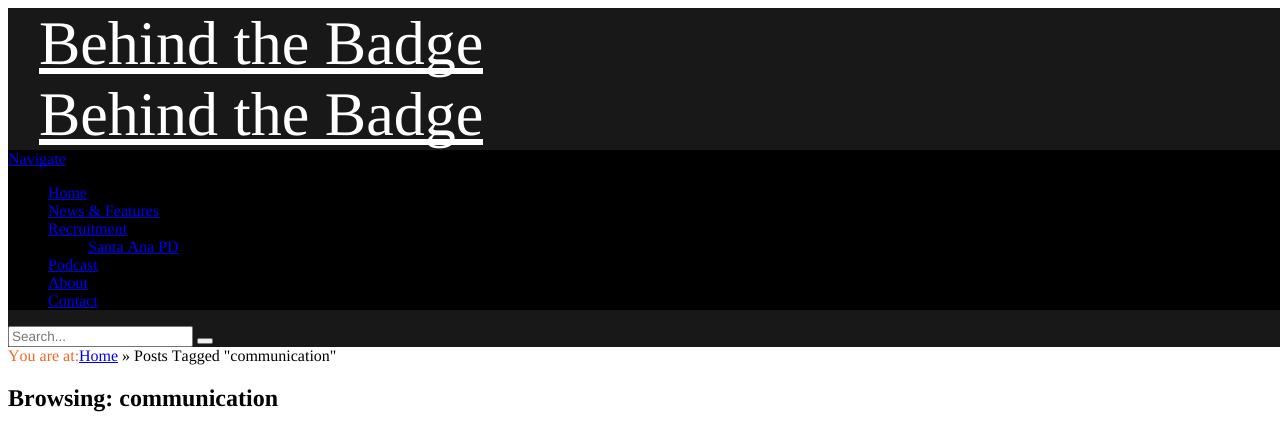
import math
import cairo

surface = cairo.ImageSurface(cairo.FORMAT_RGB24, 1288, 434)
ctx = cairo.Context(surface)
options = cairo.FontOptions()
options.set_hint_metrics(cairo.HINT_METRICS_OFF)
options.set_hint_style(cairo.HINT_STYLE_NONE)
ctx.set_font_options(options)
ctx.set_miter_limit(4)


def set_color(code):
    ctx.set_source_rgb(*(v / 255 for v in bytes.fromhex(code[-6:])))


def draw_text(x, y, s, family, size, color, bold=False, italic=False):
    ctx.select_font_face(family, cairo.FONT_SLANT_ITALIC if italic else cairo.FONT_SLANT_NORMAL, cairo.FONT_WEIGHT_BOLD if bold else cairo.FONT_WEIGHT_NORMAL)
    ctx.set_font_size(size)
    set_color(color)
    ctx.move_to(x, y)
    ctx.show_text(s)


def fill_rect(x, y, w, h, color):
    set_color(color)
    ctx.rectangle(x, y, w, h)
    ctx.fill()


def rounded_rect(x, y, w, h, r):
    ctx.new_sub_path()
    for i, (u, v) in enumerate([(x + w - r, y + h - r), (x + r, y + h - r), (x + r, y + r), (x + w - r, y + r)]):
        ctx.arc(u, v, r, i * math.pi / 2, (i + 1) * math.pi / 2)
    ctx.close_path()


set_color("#ffffff")
ctx.paint()
fill_rect(8, 8, 1272, 339, "#181818")
fill_rect(39, 68, 444, 6, "#ffffff")
draw_text(39, 64, "Behind the Badge", "Liberation Serif", 62, "#ffffff")
fill_rect(39, 139, 444, 6, "#ffffff")
draw_text(39, 135, "Behind the Badge", "Liberation Serif", 62, "#ffffff")
fill_rect(8, 150, 1272, 160, "#000000")
fill_rect(8, 165, 58, 1, "#0000ee")
draw_text(8, 164, "Navigate", "Liberation Serif", 16, "#0000ee")
draw_text(48, 198, "Home", "Liberation Serif", 16, "#0000ee")
fill_rect(48, 199, 39, 1, "#0000ee")
draw_text(48, 216, "News & Features", "Liberation Serif", 16, "#0000ee")
fill_rect(48, 217, 111, 1, "#0000ee")
draw_text(48, 234, "Recruitment", "Liberation Serif", 16, "#0000ee")
fill_rect(48, 235, 79, 1, "#0000ee")
draw_text(88, 252, "Santa Ana PD", "Liberation Serif", 16, "#0000ee")
fill_rect(88, 253, 91, 1, "#0000ee")
draw_text(48, 270, "Podcast", "Liberation Serif", 16, "#0000ee")
fill_rect(48, 271, 50, 1, "#0000ee")
draw_text(48, 288, "About", "Liberation Serif", 16, "#0000ee")
fill_rect(48, 289, 40, 1, "#0000ee")
draw_text(48, 306, "Contact", "Liberation Serif", 16, "#0000ee")
fill_rect(48, 307, 50, 1, "#0000ee")
set_color("#ffffff")
rounded_rect(8.5, 326.5, 184, 20, 1.5)
ctx.fill_preserve()
set_color("#767676")
ctx.set_line_width(1)
ctx.stroke()
draw_text(12, 341, "Search...", "Liberation Sans", 13.5, "#757575")
set_color("#efefef")
rounded_rect(197.5, 338.5, 15, 5, 1.5)
ctx.fill_preserve()
set_color("#767676")
ctx.stroke()
draw_text(8, 361, "You are at:", "Liberation Serif", 16, "#f26522")
draw_text(79, 361, "Home", "Liberation Serif", 16, "#0000ee")
fill_rect(79, 362, 39, 1, "#0000ee")
draw_text(122, 361, "» Posts Tagged \"communication\"", "Liberation Serif", 16, "#000000")
draw_text(8, 406, "Browsing: communication", "Liberation Serif", 24, "#000000", bold=True)
surface.write_to_png("output.png")
